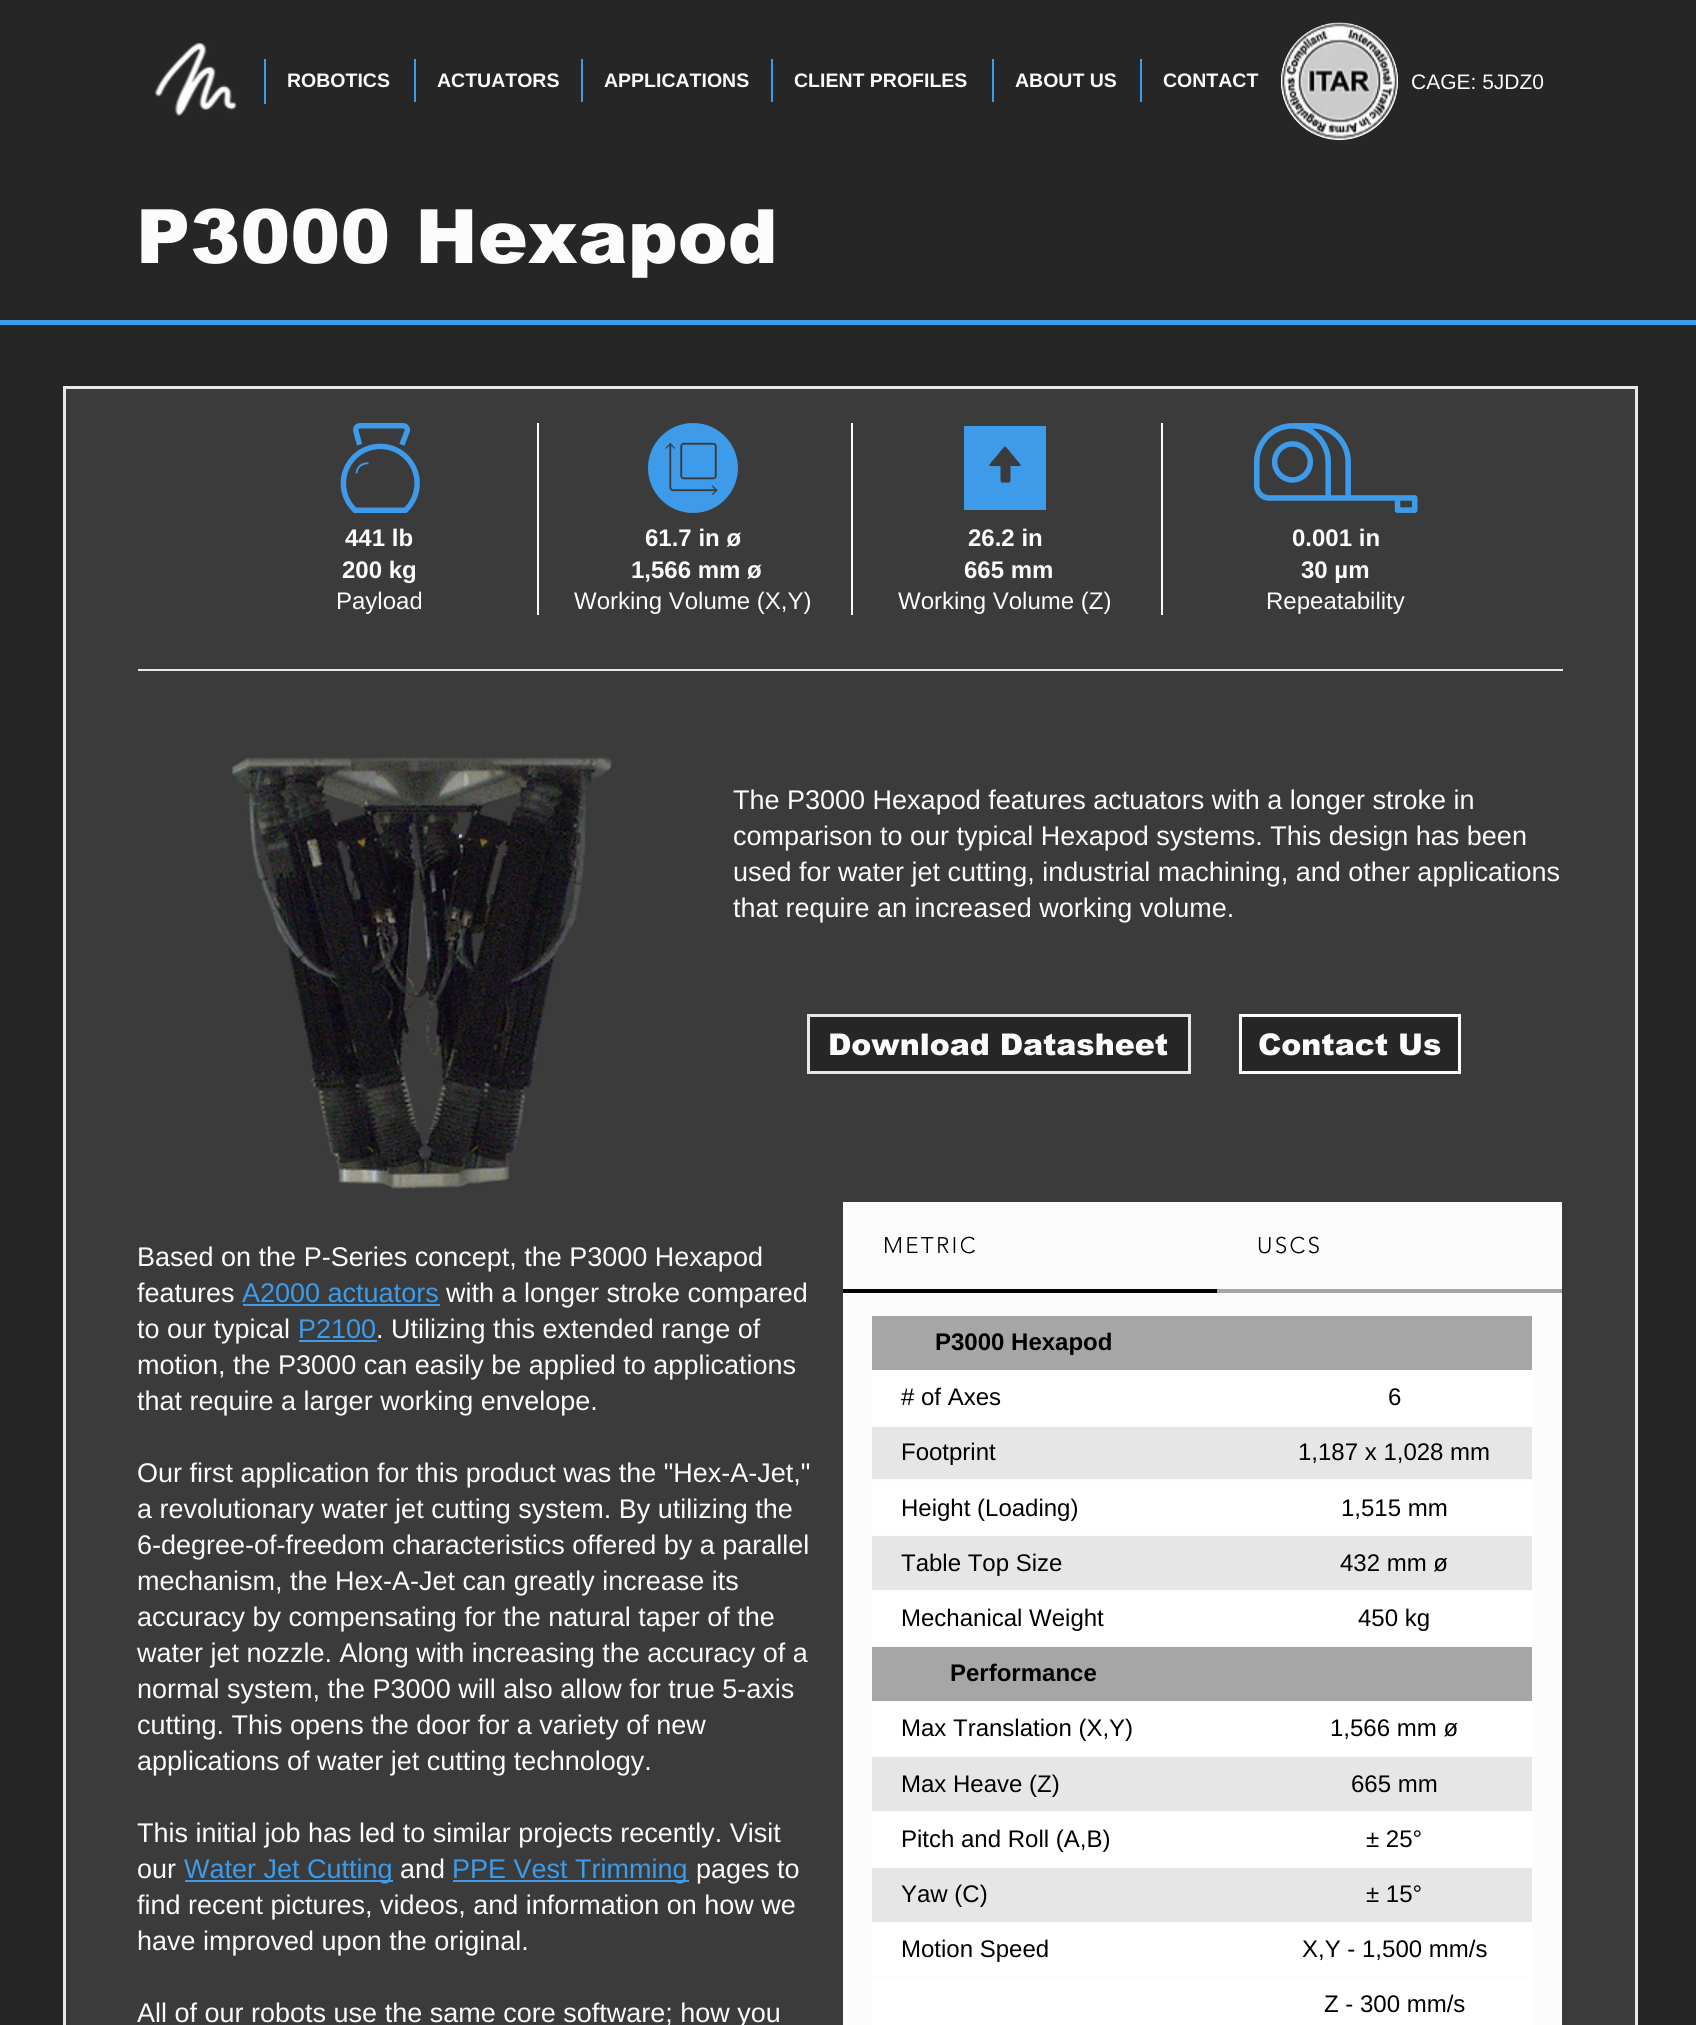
import math
import cairo

surface = cairo.ImageSurface(cairo.FORMAT_RGB24, 1696, 2025)
ctx = cairo.Context(surface)
options = cairo.FontOptions()
options.set_hint_metrics(cairo.HINT_METRICS_OFF)
options.set_hint_style(cairo.HINT_STYLE_NONE)
ctx.set_font_options(options)
ctx.set_miter_limit(4)


def set_color(code):
    ctx.set_source_rgb(*(v / 255 for v in bytes.fromhex(code[-6:])))


def draw_text(x, y, s, family, size, color, bold=False, italic=False):
    ctx.select_font_face(family, cairo.FONT_SLANT_ITALIC if italic else cairo.FONT_SLANT_NORMAL, cairo.FONT_WEIGHT_BOLD if bold else cairo.FONT_WEIGHT_NORMAL)
    ctx.set_font_size(size)
    set_color(color)
    ctx.move_to(x, y)
    ctx.show_text(s)


def draw_spaced(x, y, s, letter, word):
    ctx.move_to(x, y)
    for ch in s:
        ctx.show_text(ch)
        ctx.rel_move_to(letter + word * (ch == ' '), 0)


def fill_rect(x, y, w, h, color):
    set_color(color)
    ctx.rectangle(x, y, w, h)
    ctx.fill()


def draw_image(path, x, y, w, h):
    ctx.save()
    ctx.set_source_surface(cairo.ImageSurface.create_from_png(path), x, y)
    ctx.rectangle(x, y, w, h)
    ctx.fill()
    ctx.restore()


set_color("#262626")
ctx.paint()
draw_image("assets/img1.png", 154, 42, 83, 74)
fill_rect(264, 59, 2, 45, "#3d9be9")
draw_text(287, 87, "ROBOTICS", "Liberation Sans", 19.5, "#fcfcfc", bold=True)
fill_rect(414, 59, 2, 43, "#3d9be9")
draw_text(437, 87, "ACTUATORS", "Liberation Sans", 19.5, "#fcfcfc", bold=True)
fill_rect(581, 59, 2, 43, "#3d9be9")
draw_text(604, 87, "APPLICATIONS", "Liberation Sans", 19.5, "#fcfcfc", bold=True)
fill_rect(771, 59, 2, 43, "#3d9be9")
draw_text(794, 87, "CLIENT PROFILES", "Liberation Sans", 19.5, "#fcfcfc", bold=True)
fill_rect(992, 59, 2, 43, "#3d9be9")
draw_text(1015, 87, "ABOUT US", "Liberation Sans", 19.5, "#fcfcfc", bold=True)
fill_rect(1140, 59, 2, 43, "#3d9be9")
draw_text(1163, 87, "CONTACT", "Liberation Sans", 19.5, "#fcfcfc", bold=True)
set_color("#ffffff")
ctx.new_path()
ctx.arc(1339.5, 81.5, 58.5, 0, 2 * math.pi)
ctx.fill()
draw_image("assets/img2.png", 1281, 22, 117, 118)
draw_text(1411, 89, "CAGE: 5JDZ0", "Liberation Sans", 21, "#fcfcfc")
draw_text(136, 263, "P3000 Hexapod", "arial Black", 75, "#fcfcfc")
fill_rect(0, 320, 1696, 5, "#3d9be9")
set_color("#3b3b3b")
ctx.rectangle(64.5, 387.5, 1572, 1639)
ctx.fill_preserve()
set_color("#e8e8e8")
ctx.set_line_width(3)
ctx.stroke()
draw_image("assets/img3.png", 340, 423, 80, 90)
fill_rect(537, 423, 2, 192, "#fcfcfc")
draw_image("assets/img4.png", 648, 423, 90, 90)
fill_rect(851, 423, 2, 192, "#fcfcfc")
fill_rect(964, 426, 82, 84, "#3d9be9")
set_color("#3b3b3b")
ctx.new_path()
ctx.move_to(1010.5, 466)
ctx.line_to(1010.5, 478.5)
ctx.curve_to(1010.5, 483.5, 1010, 482.5, 1005.5, 482.5)
ctx.curve_to(1001, 482.5, 1000.5, 483.5, 1000.5, 478.5)
ctx.line_to(1000.5, 466)
ctx.curve_to(986, 466, 986.5, 468, 997, 455.5)
ctx.line_to(1001.5, 450)
ctx.curve_to(1005.5, 445.5, 1004.5, 445.5, 1008.5, 450)
ctx.line_to(1020.5, 464.5)
ctx.curve_to(1022, 466.5, 1017, 466, 1016.5, 466)
ctx.close_path()
ctx.fill()
fill_rect(1161, 423, 2, 192, "#fcfcfc")
draw_image("assets/img5.png", 1254, 423, 164, 90)
draw_text(345, 546, "441 lb", "Liberation Sans", 24, "#fcfcfc", bold=True)
draw_text(342, 578, "200 kg", "Liberation Sans", 24, "#fcfcfc", bold=True)
draw_text(336, 609, "Payload", "Liberation Sans", 24, "#fcfcfc")
draw_text(645, 546, "61.7 in ø", "Liberation Sans", 24, "#fcfcfc", bold=True)
draw_text(631, 578, "1,566 mm ø", "Liberation Sans", 24, "#fcfcfc", bold=True)
draw_text(574, 609, "Working Volume (X,Y)", "Liberation Sans", 24, "#fcfcfc")
draw_text(968, 546, "26.2 in", "Liberation Sans", 24, "#fcfcfc", bold=True)
draw_text(964, 578, "665 mm", "Liberation Sans", 24, "#fcfcfc", bold=True)
draw_text(898, 609, "Working Volume (Z)", "Liberation Sans", 24, "#fcfcfc")
draw_text(1292, 546, "0.001 in", "Liberation Sans", 24, "#fcfcfc", bold=True)
draw_text(1301, 578, "30 µm", "Liberation Sans", 24, "#fcfcfc", bold=True)
draw_text(1266, 609, "Repeatability", "Liberation Sans", 24, "#fcfcfc")
fill_rect(138, 669, 1425, 2, "#e8e8e8")
draw_image("assets/img6.png", 231, 757, 381, 432)
draw_text(733, 809, "The P3000 Hexapod features actuators with a longer stroke in", "Liberation Sans", 27, "#fcfcfc")
draw_text(733, 845, "comparison to our typical Hexapod systems. This design has been", "Liberation Sans", 27, "#fcfcfc")
draw_text(733, 881, "used for water jet cutting, industrial machining, and other applications", "Liberation Sans", 27, "#fcfcfc")
draw_text(733, 917, "that require an increased working volume.", "Liberation Sans", 27, "#fcfcfc")
set_color("#262626")
ctx.rectangle(808.5, 1015.5, 381, 57)
ctx.fill_preserve()
set_color("#e8e8e8")
ctx.stroke()
draw_text(828, 1055, "Download Datasheet", "arial Black", 30, "#fcfcfc")
set_color("#262626")
ctx.rectangle(1240.5, 1015.5, 219, 57)
ctx.fill_preserve()
set_color("#fcfcfc")
ctx.stroke()
draw_text(1258, 1055, "Contact Us", "arial Black", 30, "#fcfcfc")
draw_text(137, 1266, "Based on the P-Series concept, the P3000 Hexapod", "Liberation Sans", 27, "#fcfcfc")
draw_text(137, 1302, "features", "Liberation Sans", 27, "#fcfcfc")
draw_text(242, 1302, "A2000 actuators", "Liberation Sans", 27, "#3d9be9")
fill_rect(243, 1304, 197, 2, "#3d9be9")
draw_text(446, 1302, "with a longer stroke compared", "Liberation Sans", 27, "#fcfcfc")
draw_text(137, 1338, "to our typical", "Liberation Sans", 27, "#fcfcfc")
draw_text(298, 1338, "P2100", "Liberation Sans", 27, "#3d9be9")
draw_text(376, 1338, ". Utilizing this extended range of", "Liberation Sans", 27, "#fcfcfc")
fill_rect(299, 1340, 78, 2, "#3d9be9")
draw_text(137, 1374, "motion, the P3000 can easily be applied to applications", "Liberation Sans", 27, "#fcfcfc")
draw_text(137, 1410, "that require a larger working envelope.", "Liberation Sans", 27, "#fcfcfc")
draw_text(137, 1482, "Our first application for this product was the \"Hex-A-Jet,\"", "Liberation Sans", 27, "#fcfcfc")
draw_text(137, 1518, "a revolutionary water jet cutting system. By utilizing the", "Liberation Sans", 27, "#fcfcfc")
draw_text(137, 1554, "6-degree-of-freedom characteristics offered by a parallel", "Liberation Sans", 27, "#fcfcfc")
draw_text(137, 1590, "mechanism, the Hex-A-Jet can greatly increase its", "Liberation Sans", 27, "#fcfcfc")
draw_text(137, 1626, "accuracy by compensating for the natural taper of the", "Liberation Sans", 27, "#fcfcfc")
draw_text(137, 1662, "water jet nozzle. Along with increasing the accuracy of a", "Liberation Sans", 27, "#fcfcfc")
draw_text(137, 1698, "normal system, the P3000 will also allow for true 5-axis", "Liberation Sans", 27, "#fcfcfc")
draw_text(137, 1734, "cutting. This opens the door for a variety of new", "Liberation Sans", 27, "#fcfcfc")
draw_text(137, 1770, "applications of water jet cutting technology.", "Liberation Sans", 27, "#fcfcfc")
draw_text(137, 1842, "This initial job has led to similar projects recently. Visit", "Liberation Sans", 27, "#fcfcfc")
draw_text(137, 1878, "our", "Liberation Sans", 27, "#fcfcfc")
fill_rect(185, 1880, 208, 2, "#3d9be9")
draw_text(184, 1878, "Water Jet Cutting", "Liberation Sans", 27, "#3d9be9")
draw_text(400, 1878, "and", "Liberation Sans", 27, "#fcfcfc")
fill_rect(453, 1880, 236, 2, "#3d9be9")
draw_text(452, 1878, "PPE Vest Trimming", "Liberation Sans", 27, "#3d9be9")
draw_text(696, 1878, "pages to", "Liberation Sans", 27, "#fcfcfc")
draw_text(137, 1914, "find recent pictures, videos, and information on how we", "Liberation Sans", 27, "#fcfcfc")
draw_text(137, 1950, "have improved upon the original.", "Liberation Sans", 27, "#fcfcfc")
draw_text(137, 2022, "All of our robots use the same core software; how you", "Liberation Sans", 27, "#fcfcfc")
fill_rect(843, 1202, 719, 87, "#fcfcfc")
fill_rect(843, 1289, 374, 4, "#000000")
ctx.select_font_face("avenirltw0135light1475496 Light")
ctx.set_font_size(22.5)
draw_spaced(883, 1253, "METRIC", 2.25, 0)
fill_rect(1217, 1289, 345, 4, "#a6a6a6")
set_color("#000000")
draw_spaced(1257, 1253, "USCS", 2.25, 0)
fill_rect(843, 1293, 719, 732, "#fcfcfc")
fill_rect(872, 1316, 660, 54, "#a6a6a6")
draw_text(935, 1350, "P3000 Hexapod", "Liberation Sans", 24, "#000000", bold=True)
fill_rect(872, 1371, 660, 54, "#ffffff")
draw_text(901, 1405, "# of Axes", "Liberation Sans", 24, "#000000")
draw_text(1388, 1405, "6", "Liberation Sans", 24, "#000000")
fill_rect(872, 1427, 660, 52, "#e6e6e6")
draw_text(901, 1460, "Footprint", "Liberation Sans", 24, "#000000")
draw_text(1298, 1460, "1,187 x 1,028 mm", "Liberation Sans", 24, "#000000")
fill_rect(872, 1481, 660, 54, "#ffffff")
draw_text(901, 1516, "Height (Loading)", "Liberation Sans", 24, "#000000")
draw_text(1341, 1516, "1,515 mm", "Liberation Sans", 24, "#000000")
fill_rect(872, 1536, 660, 54, "#e6e6e6")
draw_text(901, 1571, "Table Top Size", "Liberation Sans", 24, "#000000")
draw_text(1340, 1571, "432 mm ø", "Liberation Sans", 24, "#000000")
fill_rect(872, 1592, 660, 54, "#ffffff")
draw_text(901, 1626, "Mechanical Weight", "Liberation Sans", 24, "#000000")
draw_text(1358, 1626, "450 kg", "Liberation Sans", 24, "#000000")
fill_rect(872, 1647, 660, 54, "#a6a6a6")
draw_text(950, 1681, "Performance", "Liberation Sans", 24, "#000000", bold=True)
fill_rect(872, 1703, 660, 52, "#ffffff")
draw_text(901, 1736, "Max Translation (X,Y)", "Liberation Sans", 24, "#000000")
draw_text(1330, 1736, "1,566 mm ø", "Liberation Sans", 24, "#000000")
fill_rect(872, 1757, 660, 54, "#e6e6e6")
draw_text(901, 1792, "Max Heave (Z)", "Liberation Sans", 24, "#000000")
draw_text(1351, 1792, "665 mm", "Liberation Sans", 24, "#000000")
fill_rect(872, 1812, 660, 54, "#ffffff")
draw_text(901, 1847, "Pitch and Roll (A,B)", "Liberation Sans", 24, "#000000")
draw_text(1366, 1847, "± 25°", "Liberation Sans", 24, "#000000")
fill_rect(872, 1868, 660, 54, "#e6e6e6")
draw_text(901, 1902, "Yaw (C)", "Liberation Sans", 24, "#000000")
draw_text(1366, 1902, "± 15°", "Liberation Sans", 24, "#000000")
fill_rect(872, 1923, 660, 54, "#ffffff")
draw_text(901, 1957, "Motion Speed", "Liberation Sans", 24, "#000000")
draw_text(1302, 1957, "X,Y - 1,500 mm/s", "Liberation Sans", 24, "#000000")
fill_rect(872, 1979, 660, 46, "#ffffff")
draw_text(1324, 2012, "Z - 300 mm/s", "Liberation Sans", 24, "#000000")
surface.write_to_png("output.png")
